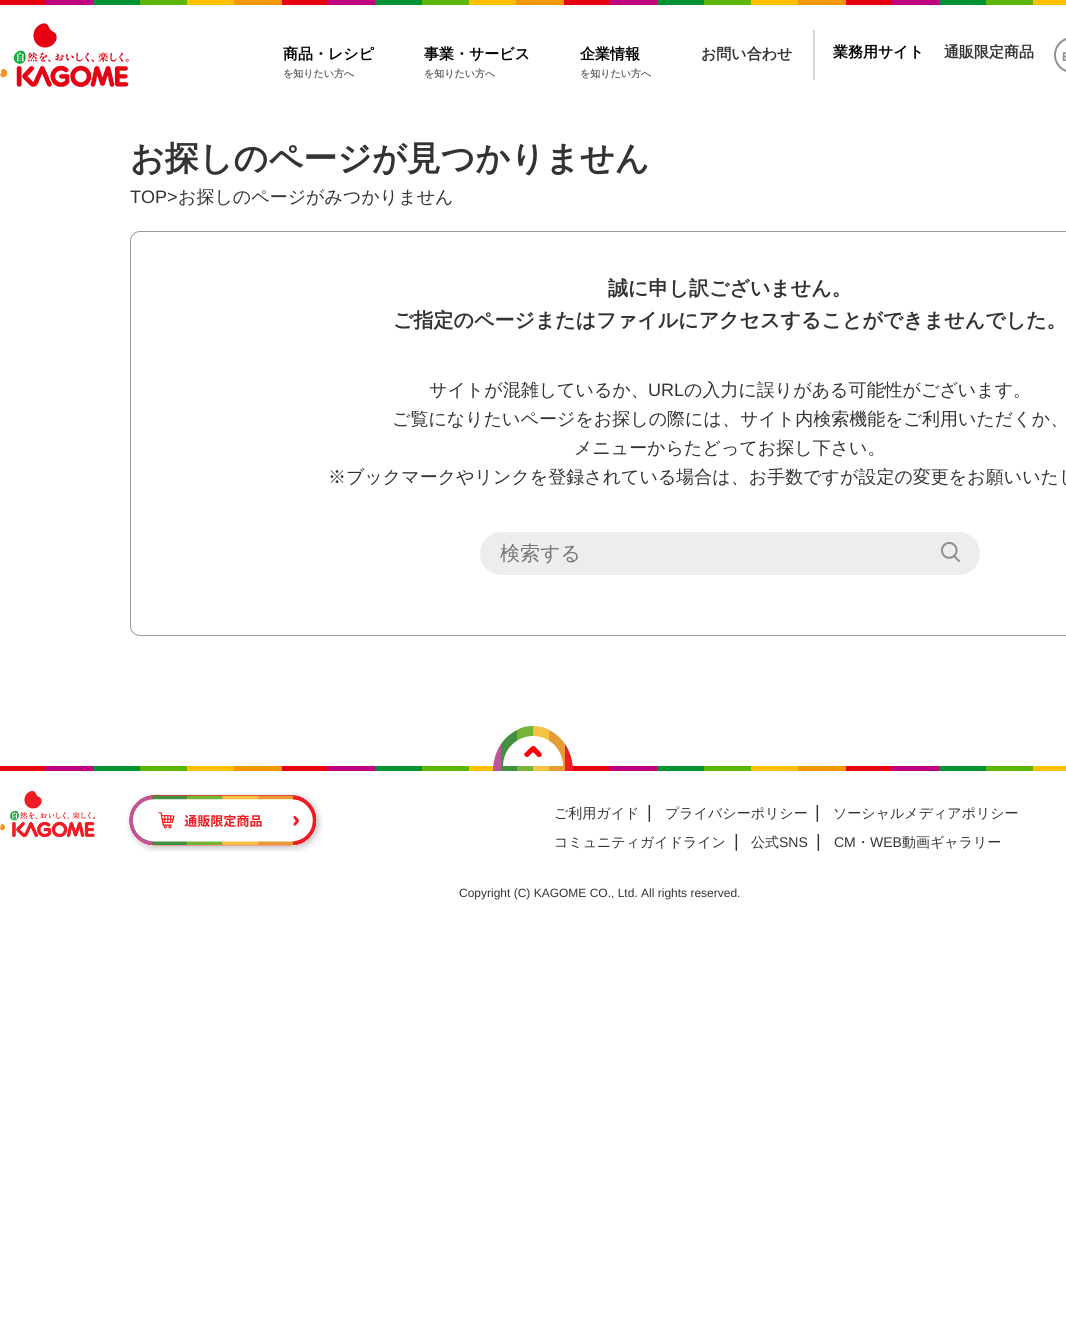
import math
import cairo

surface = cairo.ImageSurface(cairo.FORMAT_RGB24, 1066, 1335)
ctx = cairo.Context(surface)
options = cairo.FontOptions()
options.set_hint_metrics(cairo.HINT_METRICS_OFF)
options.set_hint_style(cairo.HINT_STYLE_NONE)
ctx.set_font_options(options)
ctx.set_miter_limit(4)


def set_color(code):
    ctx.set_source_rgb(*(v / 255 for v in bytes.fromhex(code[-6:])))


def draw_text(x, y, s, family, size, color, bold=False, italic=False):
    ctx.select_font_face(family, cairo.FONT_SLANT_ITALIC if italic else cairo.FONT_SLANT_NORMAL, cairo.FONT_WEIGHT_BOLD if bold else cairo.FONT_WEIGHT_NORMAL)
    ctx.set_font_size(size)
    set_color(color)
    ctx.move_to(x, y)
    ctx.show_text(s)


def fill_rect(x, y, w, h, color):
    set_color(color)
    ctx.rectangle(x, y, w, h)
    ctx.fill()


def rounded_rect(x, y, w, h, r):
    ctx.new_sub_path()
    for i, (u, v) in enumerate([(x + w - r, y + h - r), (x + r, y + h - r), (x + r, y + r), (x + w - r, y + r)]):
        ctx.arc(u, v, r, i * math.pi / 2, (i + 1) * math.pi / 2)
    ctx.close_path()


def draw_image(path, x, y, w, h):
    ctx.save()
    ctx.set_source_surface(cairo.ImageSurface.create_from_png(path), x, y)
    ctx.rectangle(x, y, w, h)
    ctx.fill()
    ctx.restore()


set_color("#ffffff")
ctx.paint()
draw_image("assets/img1.png", 0, 0, 1066, 5)
draw_image("assets/img2.png", 0, 23, 129, 64)
draw_text(283, 59, "商品・レシピ", "WenQuanYi Zen Hei", 15, "#000000", bold=True)
draw_text(283, 77, "を知りたい方へ", "WenQuanYi Zen Hei", 10, "#646464", bold=True)
draw_text(424, 59, "事業・サービス", "WenQuanYi Zen Hei", 15, "#000000", bold=True)
draw_text(424, 77, "を知りたい方へ", "WenQuanYi Zen Hei", 10, "#646464", bold=True)
draw_text(580, 59, "企業情報", "WenQuanYi Zen Hei", 15, "#000000", bold=True)
draw_text(580, 77, "を知りたい方へ", "WenQuanYi Zen Hei", 10, "#646464", bold=True)
draw_text(701, 59, "お問い合わせ", "WenQuanYi Zen Hei", 15, "#333333", bold=True)
fill_rect(813, 30, 2, 50, "#d8d8d8")
draw_text(833, 57, "業務用サイト", "WenQuanYi Zen Hei", 15, "#000000", bold=True)
draw_text(944, 57, "通販限定商品", "WenQuanYi Zen Hei", 15, "#333333", bold=True)
rounded_rect(1055, 38, 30, 34, 17)
set_color("#909090")
ctx.stroke()
draw_text(1062, 61, "E", "Inter", 12, "#909090", bold=True)
draw_text(130, 170, "お探しのページが見つかりません", "WenQuanYi Zen Hei", 34, "#333333", bold=True)
draw_text(130, 203, "TOP>", "Liberation Sans", 18, "#333333")
draw_text(178, 203, "お探しのページがみつかりません", "WenQuanYi Zen Hei Medium", 18, "#333333")
rounded_rect(130.5, 231.5, 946, 404, 9.5)
set_color("#999999")
ctx.set_line_width(1)
ctx.stroke()
draw_text(608, 295, "誠に申し訳ございません。", "WenQuanYi Zen Hei", 20, "#333333", bold=True)
draw_text(393, 327, "ご指定のページまたはファイルにアクセスすることができませんでした。", "WenQuanYi Zen Hei", 20, "#333333", bold=True)
draw_text(429, 396, "サイトが混雑しているか、", "WenQuanYi Zen Hei Medium", 18, "#333333")
draw_text(648, 396, "URL", "Liberation Sans", 18, "#333333")
draw_text(684, 396, "の入力に誤りがある可能性がございます。", "WenQuanYi Zen Hei Medium", 18, "#333333")
draw_text(392, 425, "ご覧になりたいページをお探しの際には、サイト内検索機能をご利用いただくか、", "WenQuanYi Zen Hei Medium", 18, "#333333")
draw_text(574, 454, "メニューからたどってお探し下さい。", "WenQuanYi Zen Hei Medium", 18, "#333333")
draw_text(328, 483, "※ブックマークやリンクを登録されている場合は、お手数ですが設定の変更をお願いいたし", "WenQuanYi Zen Hei Medium", 18, "#333333")
set_color("#ededed")
rounded_rect(480, 532, 500, 43, 21.5)
ctx.fill()
draw_text(500, 560, "検索する", "WenQuanYi Zen Hei Medium", 20, "#757575")
draw_image("assets/img3.png", 941, 542, 19, 20)
draw_image("assets/img1.png", 0, 766, 1066, 5)
set_color("#bd5698")
ctx.new_path()
ctx.move_to(501, 771)
ctx.line_to(501, 744)
ctx.curve_to(496, 751.5, 493, 761, 493, 771)
ctx.close_path()
ctx.fill()
set_color("#409040")
ctx.new_path()
ctx.move_to(517, 730)
ctx.line_to(517, 771)
ctx.line_to(501, 771)
ctx.line_to(501, 744)
ctx.curve_to(505, 738, 511, 733, 517, 730)
ctx.close_path()
ctx.fill()
set_color("#75b436")
ctx.new_path()
ctx.move_to(533, 726)
ctx.line_to(533, 771)
ctx.line_to(517, 771)
ctx.line_to(517, 730)
ctx.curve_to(522, 727, 527, 726, 533, 726)
ctx.close_path()
ctx.fill()
set_color("#f6c243")
ctx.new_path()
ctx.move_to(533, 726)
ctx.line_to(533, 771)
ctx.line_to(549, 771)
ctx.line_to(549, 730)
ctx.curve_to(544, 727, 539, 726, 533, 726)
ctx.close_path()
ctx.fill()
set_color("#e79b37")
ctx.new_path()
ctx.move_to(549, 771)
ctx.line_to(565, 771)
ctx.line_to(565, 744)
ctx.curve_to(561, 738, 555, 733, 549, 730)
ctx.close_path()
ctx.fill()
set_color("#ee1d23")
ctx.new_path()
ctx.move_to(565, 771)
ctx.line_to(573, 771)
ctx.curve_to(573, 761, 570, 751.5, 565, 744)
ctx.close_path()
ctx.fill()
set_color("#ffffff")
ctx.new_path()
ctx.move_to(533, 736)
ctx.curve_to(549.5, 736, 563, 749.5, 563, 766)
ctx.line_to(503, 766)
ctx.curve_to(503, 749.5, 516.5, 736, 533, 736)
ctx.close_path()
ctx.fill()
set_color("#ff0000")
ctx.new_path()
ctx.move_to(525, 753)
ctx.line_to(531.5, 746.5)
ctx.curve_to(533.5, 745, 536.5, 748.5, 534.5, 750.5)
ctx.line_to(530.5, 754.5)
ctx.curve_to(529.5, 755.5, 527.5, 758.5, 525.5, 756.5)
ctx.line_to(524.5, 755.5)
ctx.curve_to(524, 754.5, 524, 753.5, 525, 753)
ctx.close_path()
ctx.fill()
ctx.new_path()
ctx.move_to(535, 746.5)
ctx.line_to(541.5, 753.5)
ctx.curve_to(543, 755.5, 539.5, 758.5, 537.5, 756.5)
ctx.line_to(533.5, 752.5)
ctx.curve_to(532, 751, 529.5, 749.5, 531.5, 747.5)
ctx.line_to(532.5, 746.5)
ctx.curve_to(533.5, 746, 534.5, 746, 535, 746.5)
ctx.close_path()
ctx.fill()
draw_image("assets/img4.png", 0, 791, 95, 46)
draw_image("assets/img5.png", 127, 793, 196, 59)
draw_text(554, 818, "ご利用ガイド", "WenQuanYi Zen Hei Medium", 14, "#333333")
draw_text(647, 818, "|", "Liberation Sans", 18, "#333333")
draw_text(665, 818, "プライバシーポリシー", "WenQuanYi Zen Hei Medium", 14, "#333333")
draw_text(815, 818, "|", "Liberation Sans", 18, "#333333")
draw_text(833, 818, "ソーシャルメディアポリシー", "WenQuanYi Zen Hei Medium", 14, "#333333")
draw_text(554, 847, "コミュニティガイドライン", "WenQuanYi Zen Hei Medium", 14, "#333333")
draw_text(734, 847, "|", "Liberation Sans", 18, "#333333")
draw_text(751, 847, "公式", "WenQuanYi Zen Hei Medium", 14, "#333333")
draw_text(779, 847, "SNS", "Liberation Sans", 14, "#333333")
draw_text(816, 847, "|", "Liberation Sans", 18, "#333333")
draw_text(834, 847, "CM", "Liberation Sans", 14, "#333333")
draw_text(856, 847, "・", "WenQuanYi Zen Hei Medium", 14, "#333333")
draw_text(870, 847, "WEB", "Liberation Sans", 14, "#333333")
draw_text(902, 847, "動画ギャラリー", "WenQuanYi Zen Hei Medium", 14, "#333333")
draw_text(459, 897, "Copyright (C) KAGOME CO., Ltd. All rights reserved.", "Liberation Sans", 12, "#333333")
surface.write_to_png("output.png")
